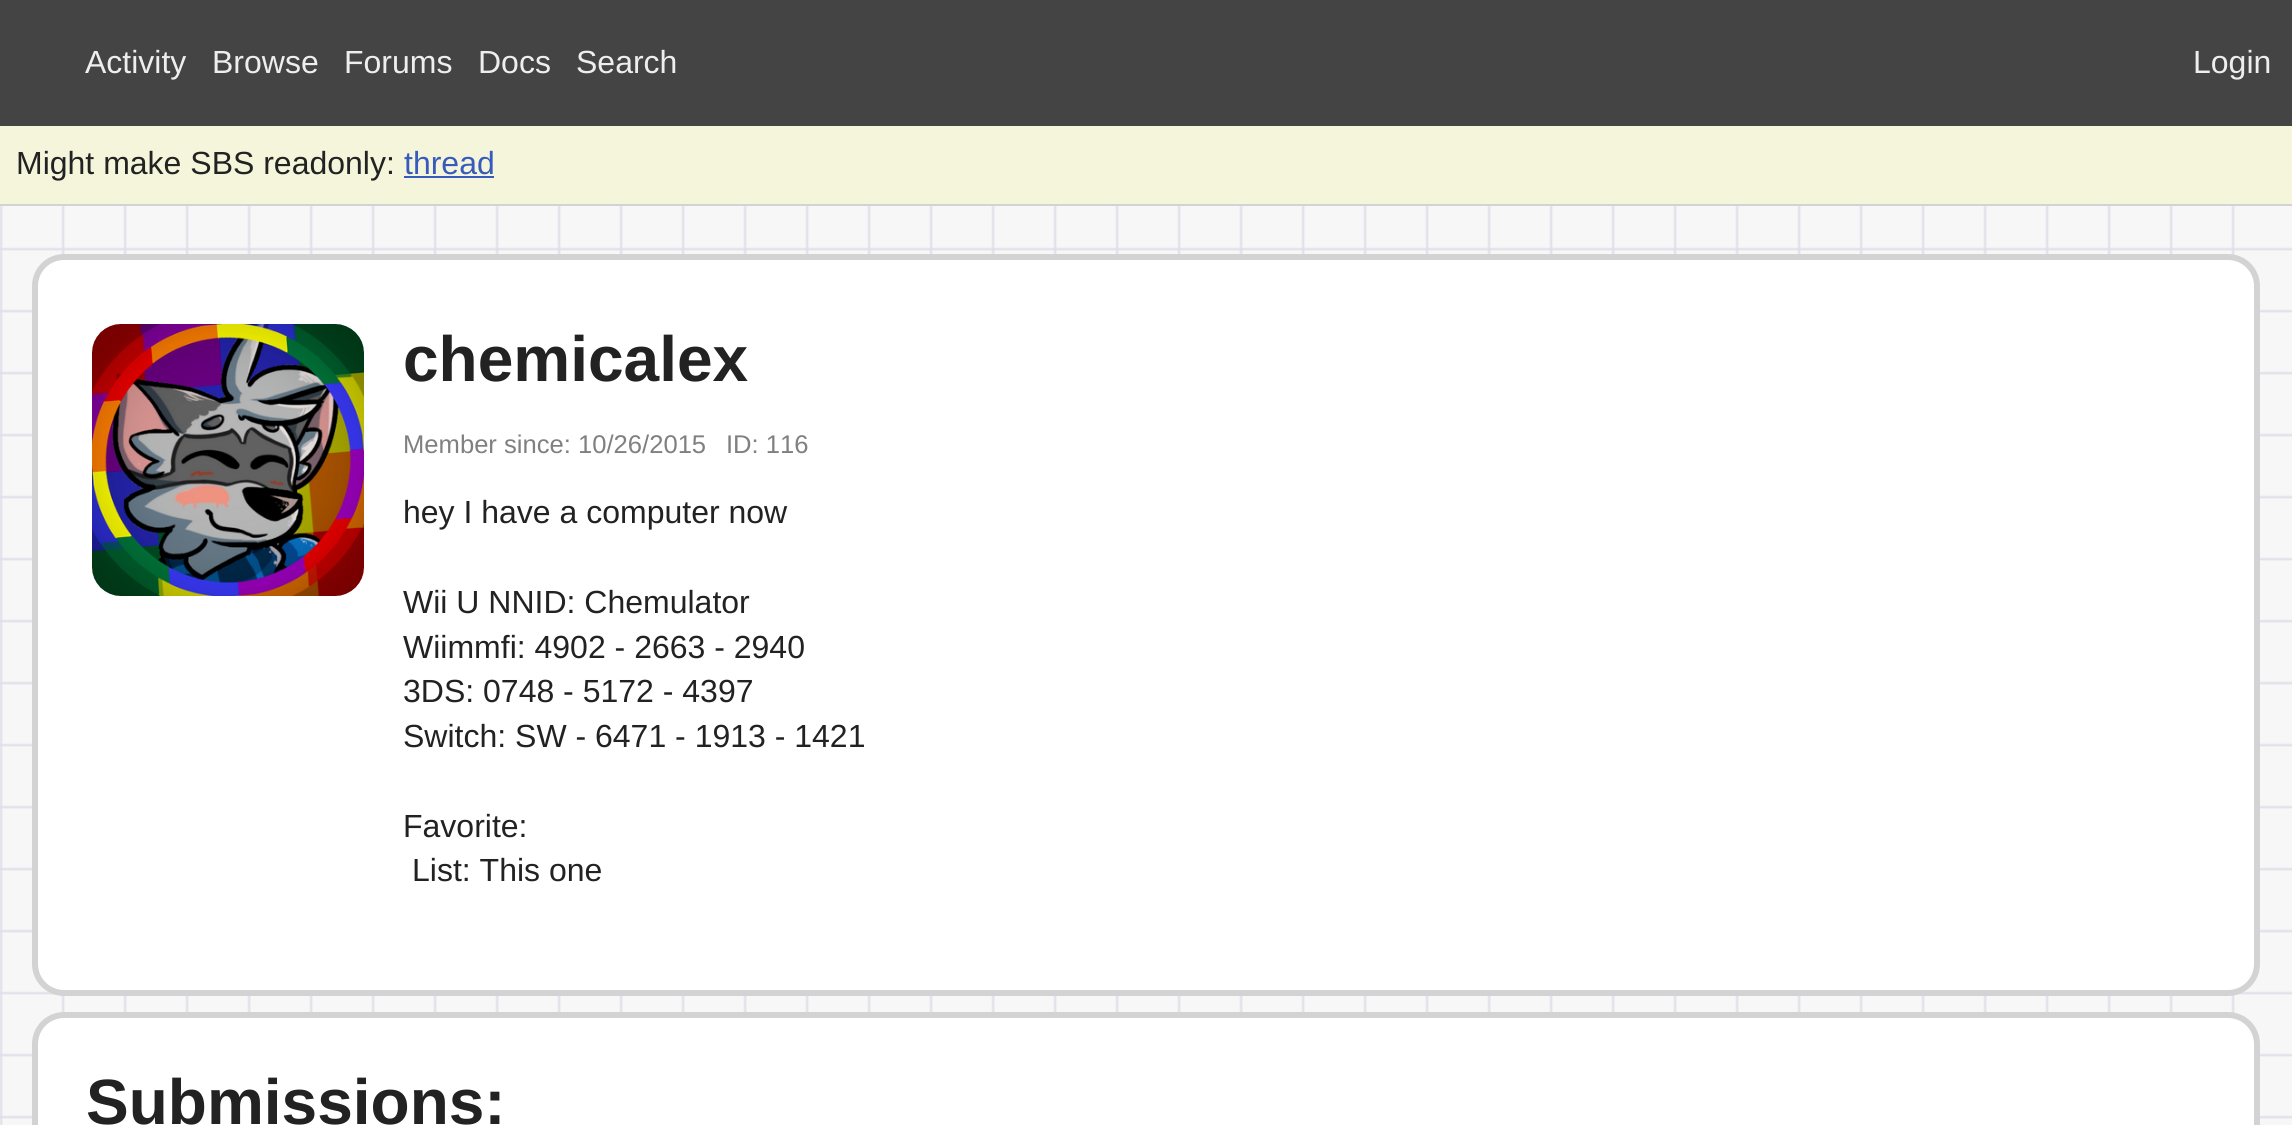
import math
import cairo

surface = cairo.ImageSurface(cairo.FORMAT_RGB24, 2292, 1125)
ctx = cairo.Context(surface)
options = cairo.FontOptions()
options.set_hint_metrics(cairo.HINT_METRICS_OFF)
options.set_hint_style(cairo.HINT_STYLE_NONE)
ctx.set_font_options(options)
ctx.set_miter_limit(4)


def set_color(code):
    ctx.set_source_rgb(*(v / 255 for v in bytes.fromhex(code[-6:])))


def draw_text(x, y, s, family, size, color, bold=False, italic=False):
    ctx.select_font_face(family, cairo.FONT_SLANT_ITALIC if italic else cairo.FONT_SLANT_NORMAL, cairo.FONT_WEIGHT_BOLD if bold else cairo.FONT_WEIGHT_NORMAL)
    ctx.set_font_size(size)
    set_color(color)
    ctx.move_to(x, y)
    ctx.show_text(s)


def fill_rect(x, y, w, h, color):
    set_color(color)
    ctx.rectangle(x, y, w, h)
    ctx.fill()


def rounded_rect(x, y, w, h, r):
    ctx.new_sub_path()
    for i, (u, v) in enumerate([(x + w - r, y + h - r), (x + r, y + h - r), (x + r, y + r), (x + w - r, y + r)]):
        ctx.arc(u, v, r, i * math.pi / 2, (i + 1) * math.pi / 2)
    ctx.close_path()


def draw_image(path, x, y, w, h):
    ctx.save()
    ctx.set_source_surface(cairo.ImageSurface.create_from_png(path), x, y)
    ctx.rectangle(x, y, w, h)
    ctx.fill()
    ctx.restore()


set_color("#ffffff")
ctx.paint()
draw_image("assets/img1.png", 0, 206, 2292, 919)
fill_rect(0, 0, 2292, 126, "#444444")
draw_text(85, 73, "Activity", "Liberation Sans", 32, "#eeeeee")
draw_text(212, 73, "Browse", "Liberation Sans", 32, "#eeeeee")
draw_text(344, 73, "Forums", "Liberation Sans", 32, "#eeeeee")
draw_text(478, 73, "Docs", "Liberation Sans", 32, "#eeeeee")
draw_text(576, 73, "Search", "Liberation Sans", 32, "#eeeeee")
draw_text(2193, 73, "Login", "Liberation Sans", 32, "#eeeeee")
fill_rect(0, 126, 2292, 78, "#f5f5dc")
fill_rect(0, 204, 2292, 2, "#d3d3d3")
draw_text(16, 174, "Might make SBS readonly:", "Liberation Sans", 32, "#222222")
draw_text(404, 174, "thread", "Liberation Sans", 32, "#375bbd")
fill_rect(404, 176, 90, 2, "#375bbd")
set_color("#ffffff")
rounded_rect(35, 257, 2222, 736, 29)
ctx.fill_preserve()
set_color("#d3d3d3")
ctx.set_line_width(6)
ctx.stroke()
draw_image("assets/img2.png", 92, 324, 272, 272)
draw_text(403, 381, "chemicalex", "Liberation Sans", 64, "#222222", bold=True)
draw_text(403, 453, "Member since: 10/26/2015", "Liberation Sans", 25.6, "#808080")
draw_text(726, 453, "ID: 116", "Liberation Sans", 25.6, "#808080")
draw_text(403, 523, "hey I have a computer now", "Liberation Sans", 32, "#222222")
draw_text(403, 613, "Wii U NNID: Chemulator", "Liberation Sans", 32, "#222222")
draw_text(403, 658, "Wiimmfi: 4902 - 2663 - 2940", "Liberation Sans", 32, "#222222")
draw_text(403, 702, "3DS: 0748 - 5172 - 4397", "Liberation Sans", 32, "#222222")
draw_text(403, 747, "Switch: SW - 6471 - 1913 - 1421", "Liberation Sans", 32, "#222222")
draw_text(403, 837, "Favorite:", "Liberation Sans", 32, "#222222")
draw_text(412, 881, "List: This one", "Liberation Sans", 32, "#222222")
set_color("#ffffff")
rounded_rect(35, 1015, 2222, 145, 29)
ctx.fill_preserve()
set_color("#d3d3d3")
ctx.stroke()
draw_text(86, 1124, "Submissions:", "Liberation Sans", 64, "#222222", bold=True)
surface.write_to_png("output.png")
